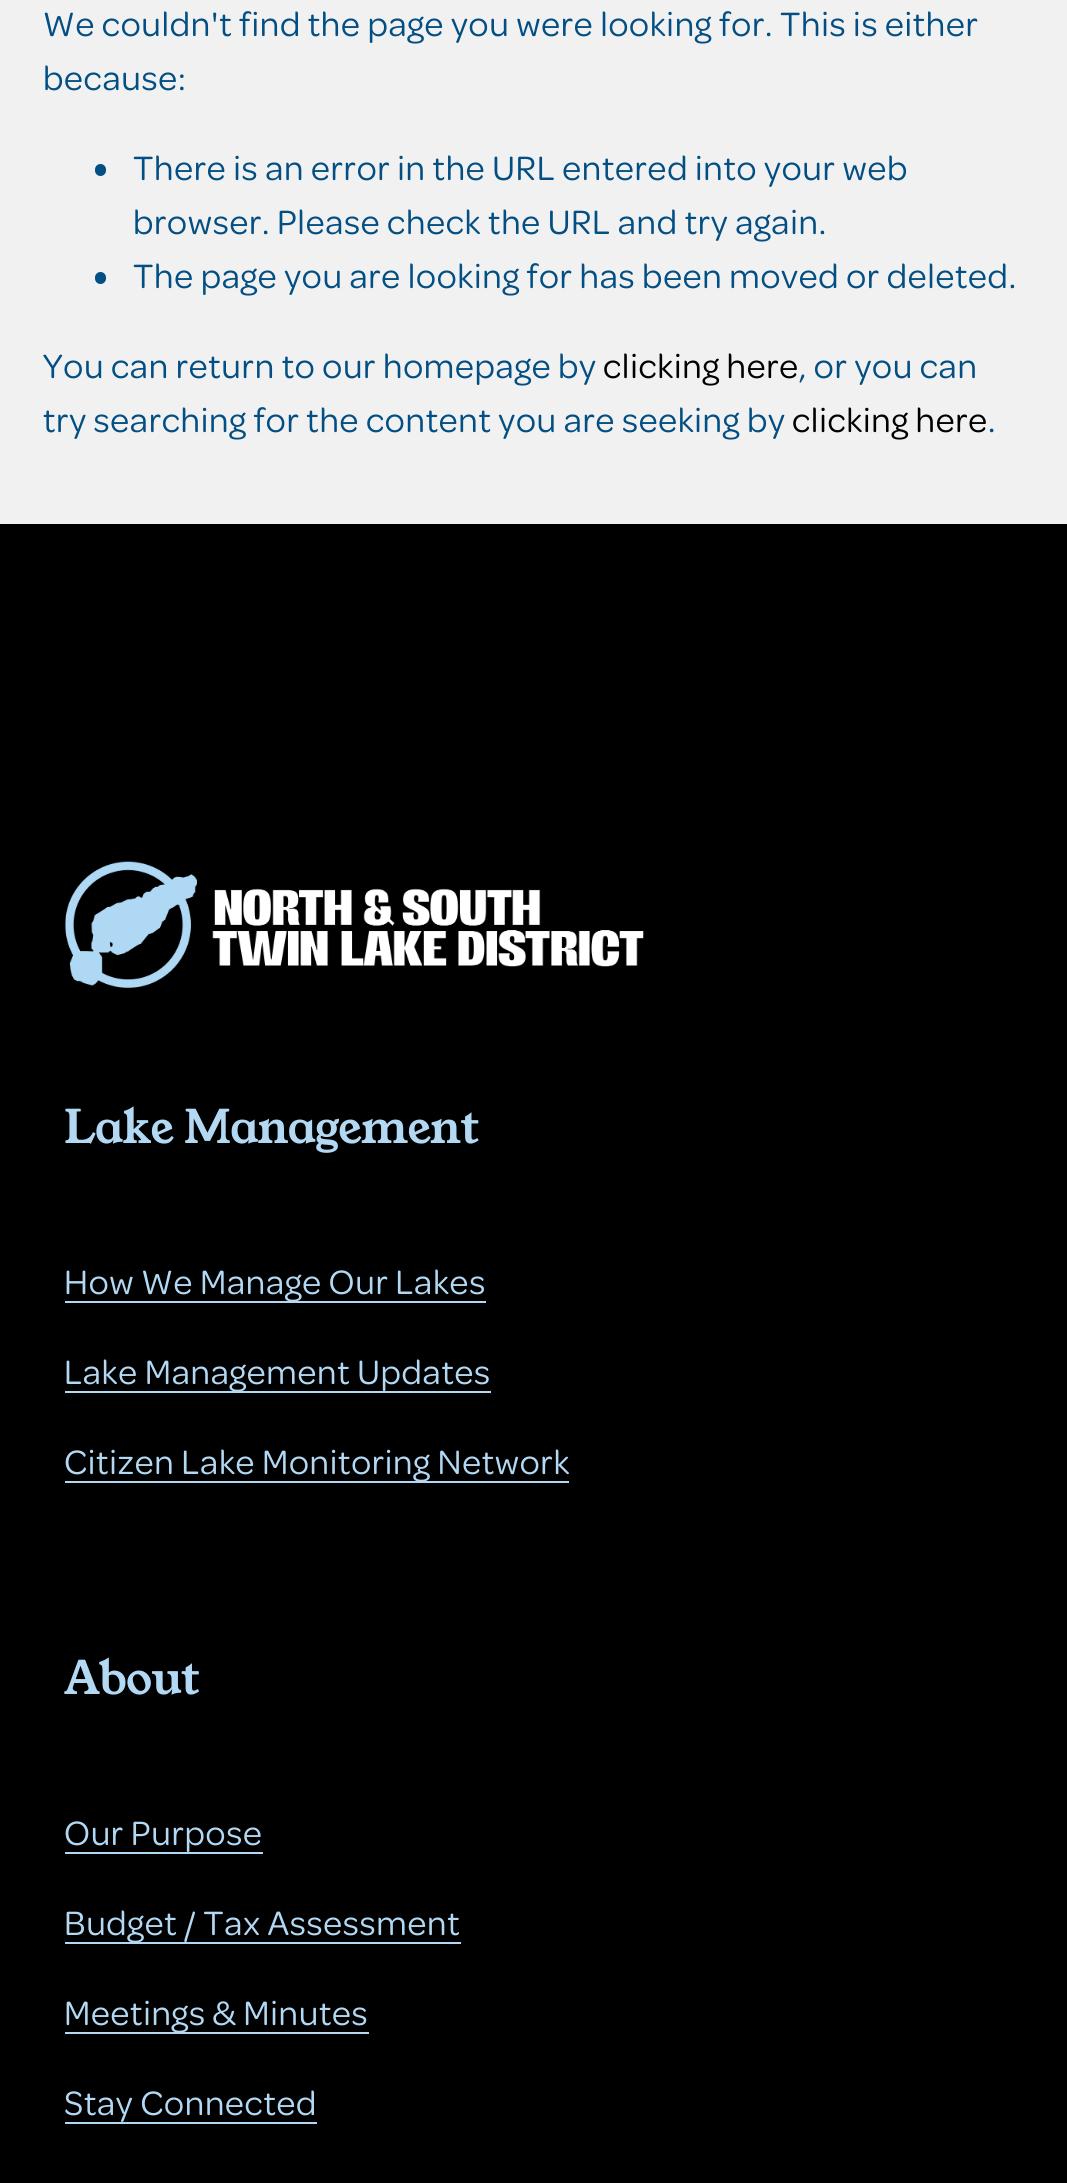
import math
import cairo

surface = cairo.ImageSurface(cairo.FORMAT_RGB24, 1067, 2183)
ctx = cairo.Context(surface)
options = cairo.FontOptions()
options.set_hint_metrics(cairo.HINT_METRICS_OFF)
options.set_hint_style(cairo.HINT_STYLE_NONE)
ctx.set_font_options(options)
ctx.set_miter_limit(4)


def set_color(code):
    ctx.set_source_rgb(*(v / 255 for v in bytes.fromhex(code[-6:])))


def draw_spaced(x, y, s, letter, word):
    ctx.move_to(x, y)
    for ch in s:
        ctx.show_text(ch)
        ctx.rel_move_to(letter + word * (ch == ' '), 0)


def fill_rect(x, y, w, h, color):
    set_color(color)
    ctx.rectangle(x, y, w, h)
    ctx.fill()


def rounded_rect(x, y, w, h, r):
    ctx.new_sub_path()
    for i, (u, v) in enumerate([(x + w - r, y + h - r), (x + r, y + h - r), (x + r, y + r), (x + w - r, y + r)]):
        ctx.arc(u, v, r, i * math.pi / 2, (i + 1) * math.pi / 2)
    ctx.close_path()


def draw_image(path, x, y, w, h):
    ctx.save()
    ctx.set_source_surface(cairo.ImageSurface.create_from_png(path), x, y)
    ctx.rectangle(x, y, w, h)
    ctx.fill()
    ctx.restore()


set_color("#f1f1f1")
ctx.paint()
ctx.select_font_face("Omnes")
ctx.set_font_size(36)
set_color("#034e82")
draw_spaced(43, 36, "We couldn't find the page you were looking for. This is either", 0.72, 0)
draw_spaced(43, 90, "because:", 0.72, 0)
rounded_rect(95, 164, 11, 12, 5.5)
ctx.fill()
draw_spaced(133, 180, "There is an error in the URL entered into your web", 0.72, 0)
draw_spaced(133, 234, "browser. Please check the URL and try again.", 0.72, 0)
rounded_rect(95, 272, 11, 12, 5.5)
ctx.fill()
draw_spaced(133, 288, "The page you are looking for has been moved or deleted.", 0.72, 0)
draw_spaced(43, 378, "You can return to our homepage by", 0.72, 0)
set_color("#000000")
draw_spaced(603, 378, "clicking here", 0.72, 0)
set_color("#034e82")
draw_spaced(799, 378, ", or you can", 0.72, 0)
draw_spaced(43, 432, "try searching for the content you are seeking by", 0.72, 0)
set_color("#000000")
draw_spaced(792, 432, "clicking here", 0.72, 0)
set_color("#034e82")
draw_spaced(988, 432, ".", 0.72, 0)
fill_rect(0, 524, 1067, 1659, "#000000")
draw_image("assets/img1.png", 65, 861, 579, 127)
ctx.select_font_face("Young Serif")
ctx.set_font_size(45.75)
set_color("#b2d8f3")
draw_spaced(64, 1143, "Lake Management", -0.9, 0)
fill_rect(65, 1301, 421, 2, "#b2d8f3")
ctx.select_font_face("Omnes")
ctx.set_font_size(36)
draw_spaced(64, 1294, "How We Manage Our Lakes", 0.72, 0)
fill_rect(65, 1391, 426, 2, "#b2d8f3")
draw_spaced(64, 1384, "Lake Management Updates", 0.72, 0)
fill_rect(65, 1481, 504, 2, "#b2d8f3")
draw_spaced(64, 1474, "Citizen Lake Monitoring Network", 0.72, 0)
ctx.select_font_face("Young Serif")
ctx.set_font_size(45.75)
draw_spaced(64, 1694, "About", -0.9, 0)
ctx.select_font_face("Omnes")
ctx.set_font_size(36)
draw_spaced(64, 1845, "Our Purpose", 0.72, 0)
fill_rect(65, 1852, 198, 2, "#b2d8f3")
fill_rect(65, 1942, 396, 2, "#b2d8f3")
draw_spaced(64, 1935, "Budget / Tax Assessment", 0.72, 0)
fill_rect(65, 2032, 304, 2, "#b2d8f3")
draw_spaced(64, 2025, "Meetings & Minutes", 0.72, 0)
draw_spaced(64, 2115, "Stay Connected", 0.72, 0)
fill_rect(65, 2122, 252, 2, "#b2d8f3")
surface.write_to_png("output.png")
